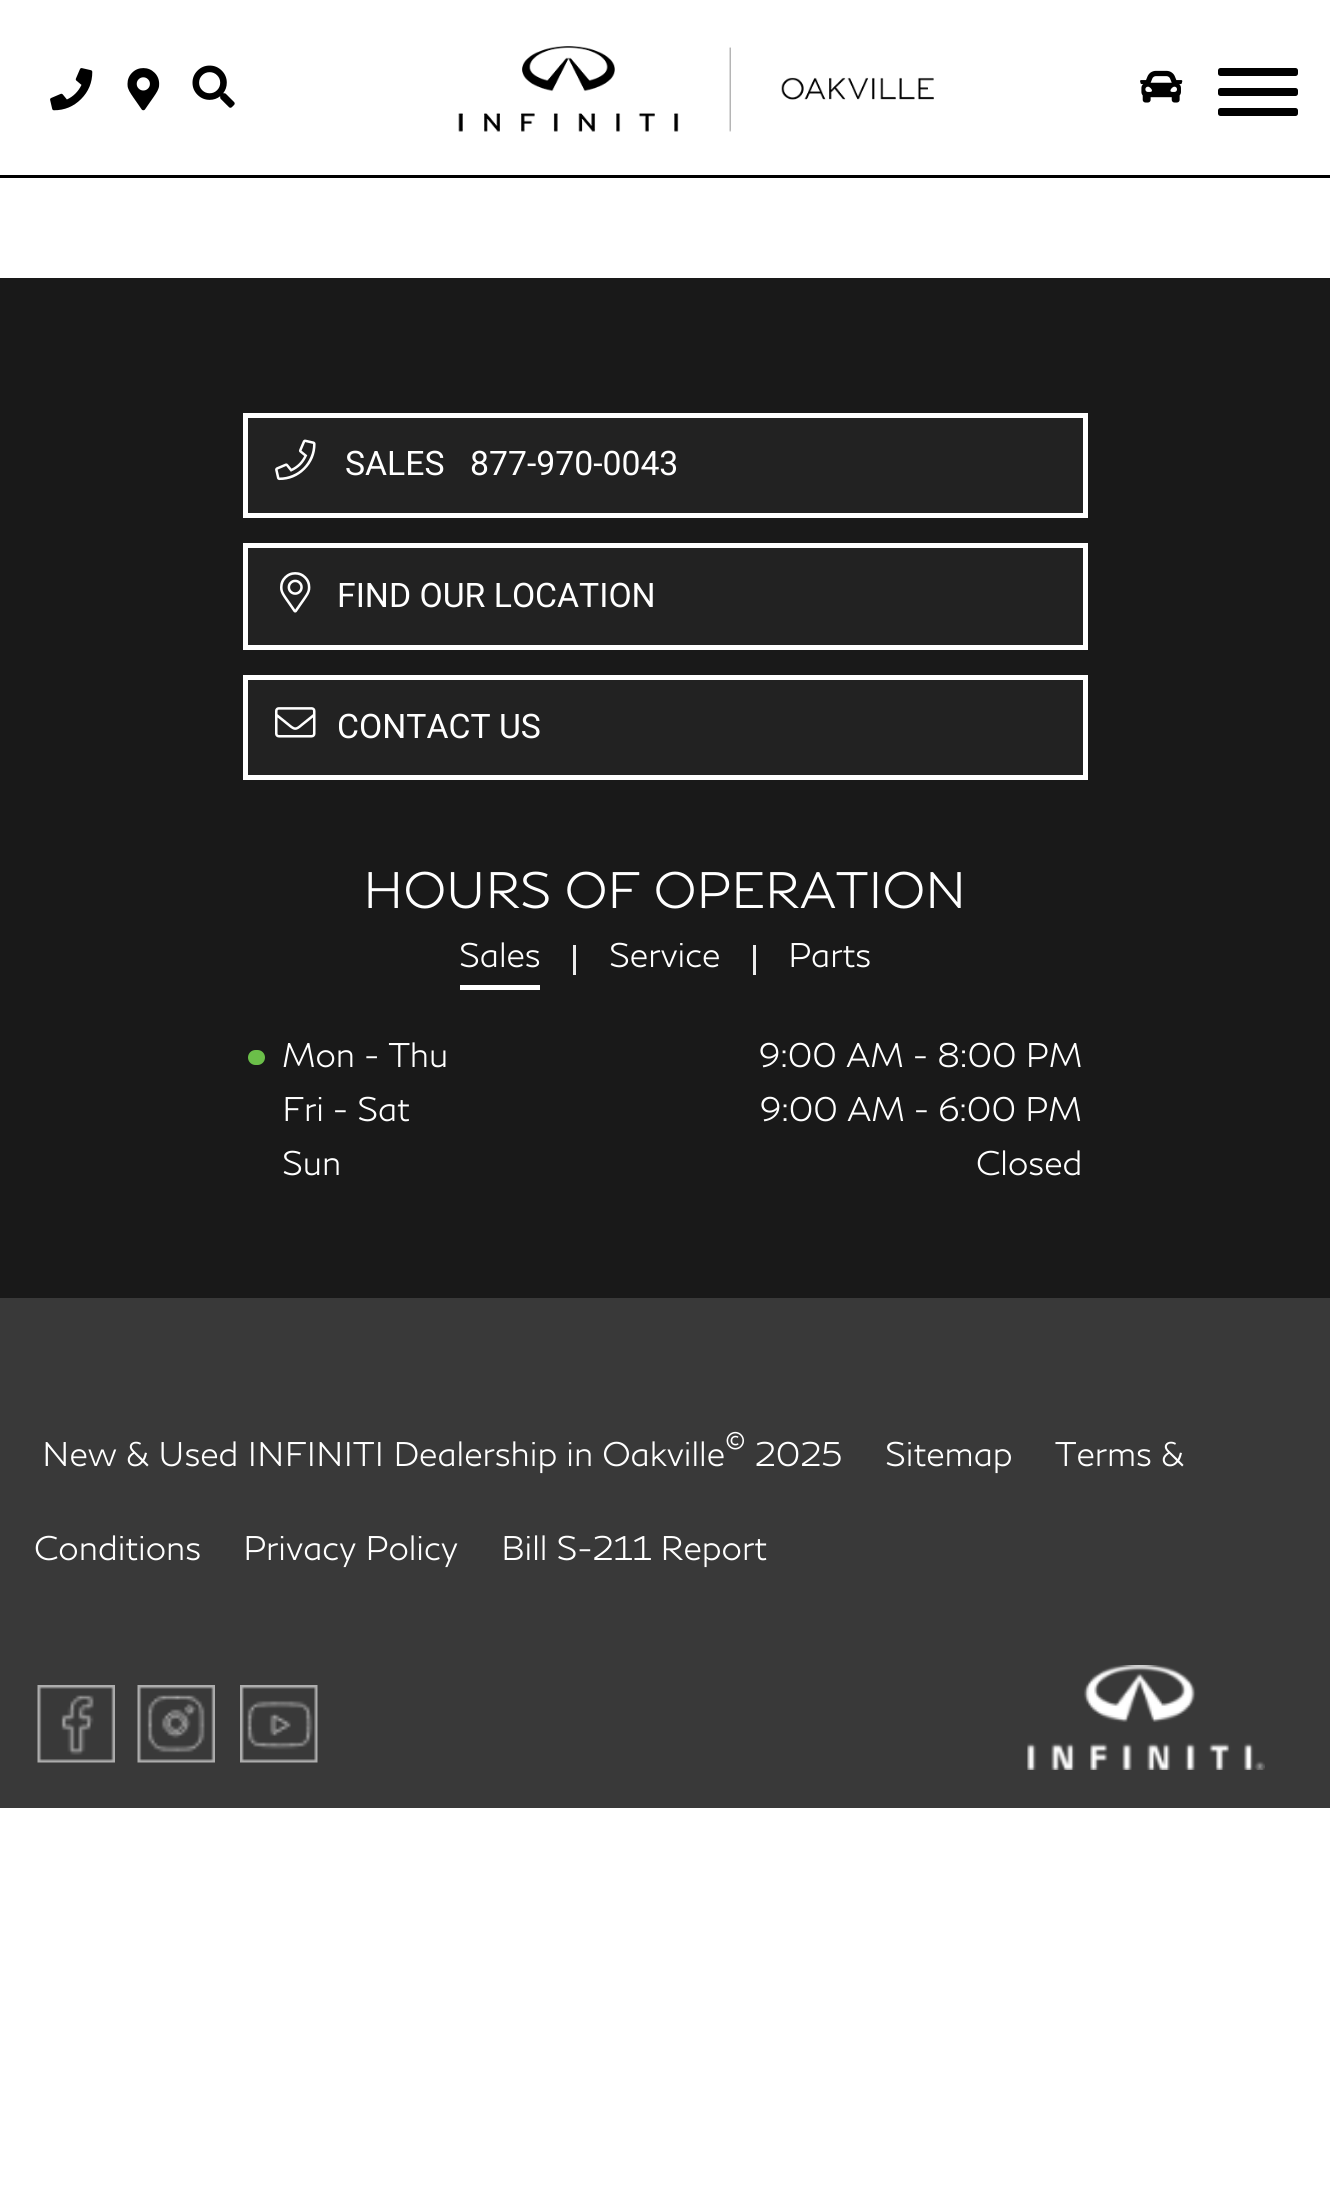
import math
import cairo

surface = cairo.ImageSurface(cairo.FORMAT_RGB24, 1330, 2206)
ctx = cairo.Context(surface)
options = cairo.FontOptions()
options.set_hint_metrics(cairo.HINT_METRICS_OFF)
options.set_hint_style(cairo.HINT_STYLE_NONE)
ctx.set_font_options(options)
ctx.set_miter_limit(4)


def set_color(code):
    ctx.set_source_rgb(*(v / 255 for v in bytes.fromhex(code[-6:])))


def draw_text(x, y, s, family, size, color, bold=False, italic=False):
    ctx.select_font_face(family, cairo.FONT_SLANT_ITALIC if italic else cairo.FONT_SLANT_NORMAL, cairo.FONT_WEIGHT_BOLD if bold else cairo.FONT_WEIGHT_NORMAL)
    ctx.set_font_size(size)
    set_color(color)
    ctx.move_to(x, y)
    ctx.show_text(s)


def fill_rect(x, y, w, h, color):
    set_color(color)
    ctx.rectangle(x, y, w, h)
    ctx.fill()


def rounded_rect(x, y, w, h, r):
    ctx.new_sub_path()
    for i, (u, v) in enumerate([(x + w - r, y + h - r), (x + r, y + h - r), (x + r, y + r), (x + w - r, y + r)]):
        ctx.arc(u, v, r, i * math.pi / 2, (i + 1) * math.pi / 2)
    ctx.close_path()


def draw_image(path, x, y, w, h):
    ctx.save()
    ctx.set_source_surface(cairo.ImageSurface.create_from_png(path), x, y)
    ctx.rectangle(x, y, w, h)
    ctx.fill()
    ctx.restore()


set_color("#ffffff")
ctx.paint()
fill_rect(0, 175, 1330, 3, "#000000")
draw_image("assets/img1.png", 50, 68, 43, 43)
draw_image("assets/img2.png", 127, 68, 33, 43)
draw_image("assets/img3.png", 192, 65, 43, 43)
draw_image("assets/img4.png", 458, 46, 476, 86)
draw_image("assets/img5.png", 1140, 70, 43, 33)
rounded_rect(1218, 88, 80, 8, 2.5)
ctx.fill()
rounded_rect(1218, 68, 80, 8, 2.5)
ctx.fill()
rounded_rect(1218, 108, 80, 8, 2.5)
ctx.fill()
fill_rect(0, 278, 1330, 1020, "#191919")
set_color("#222222")
ctx.rectangle(245.5, 415.5, 840, 100)
ctx.fill_preserve()
set_color("#ffffff")
ctx.set_line_width(5)
ctx.stroke()
draw_image("assets/img6.png", 275, 439, 41, 42)
draw_text(345, 475, "SALES", "Roboto", 33.75, "#ffffff")
draw_text(470, 475, "877-970-0043", "Roboto", 33.75, "#ffffff")
set_color("#222222")
ctx.rectangle(245.5, 545.5, 840, 102)
ctx.fill_preserve()
set_color("#ffffff")
ctx.stroke()
draw_image("assets/img7.png", 280, 572, 31, 41)
draw_text(337, 607, "FIND OUR LOCATION", "Roboto", 33.75, "#ffffff")
set_color("#222222")
ctx.rectangle(245.5, 677.5, 840, 100)
ctx.fill_preserve()
set_color("#ffffff")
ctx.stroke()
draw_image("assets/img8.png", 275, 707, 41, 31)
draw_text(337, 738, "CONTACT US", "Roboto", 33.75, "#ffffff")
draw_text(363, 908, "HOURS OF OPERATION", "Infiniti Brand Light", 50.6, "#ffffff")
fill_rect(460, 985, 80, 5, "#ffffff")
draw_text(459, 967, "Sales", "Infiniti Brand Light", 33.75, "#ffffff")
fill_rect(573, 945, 3, 30, "#ececec")
draw_text(609, 967, "Service", "Infiniti Brand Light", 33.75, "#ffffff")
fill_rect(753, 945, 3, 30, "#ececec")
draw_text(788, 967, "Parts", "Infiniti Brand Light", 33.75, "#ffffff")
set_color("#6bbf49")
rounded_rect(248, 1050, 17, 15, 7.5)
ctx.fill()
draw_text(282, 1067, "Mon - Thu", "Infiniti Brand Light", 33.75, "#ffffff")
draw_text(759, 1067, "9:00 AM - 8:00 PM", "Infiniti Brand Light", 33.75, "#ffffff")
draw_text(282, 1121, "Fri - Sat", "Infiniti Brand Light", 33.75, "#ffffff")
draw_text(760, 1121, "9:00 AM - 6:00 PM", "Infiniti Brand Light", 33.75, "#ffffff")
draw_text(282, 1175, "Sun", "Infiniti Brand Light", 33.75, "#ffffff")
draw_text(976, 1175, "Closed", "Infiniti Brand Light", 33.75, "#ffffff")
fill_rect(0, 1298, 1330, 510, "#393939")
draw_text(42, 1466, "New & Used INFINITI Dealership in Oakville", "Infiniti Brand Light", 33.75, "#ffffff")
draw_text(725, 1452, "©", "Infiniti Brand Light", 28, "#ffffff")
draw_text(755, 1466, "2025", "Infiniti Brand Light", 33.75, "#ffffff")
draw_text(885, 1466, "Sitemap", "Infiniti Brand Light", 33.75, "#ffffff")
draw_text(1055, 1466, "Terms &", "Infiniti Brand Light", 33.75, "#ffffff")
draw_text(34, 1560, "Conditions", "Infiniti Brand Light", 33.75, "#ffffff")
draw_text(243, 1560, "Privacy Policy", "Infiniti Brand Light", 33.75, "#ffffff")
draw_text(501, 1560, "Bill S-211 Report", "Infiniti Brand Light", 33.75, "#ffffff")
draw_image("assets/img9.png", 37, 1685, 78, 78)
draw_image("assets/img10.png", 137, 1685, 78, 78)
draw_image("assets/img11.png", 240, 1685, 78, 78)
draw_image("assets/img12.png", 1027, 1665, 238, 105)
surface.write_to_png("output.png")
